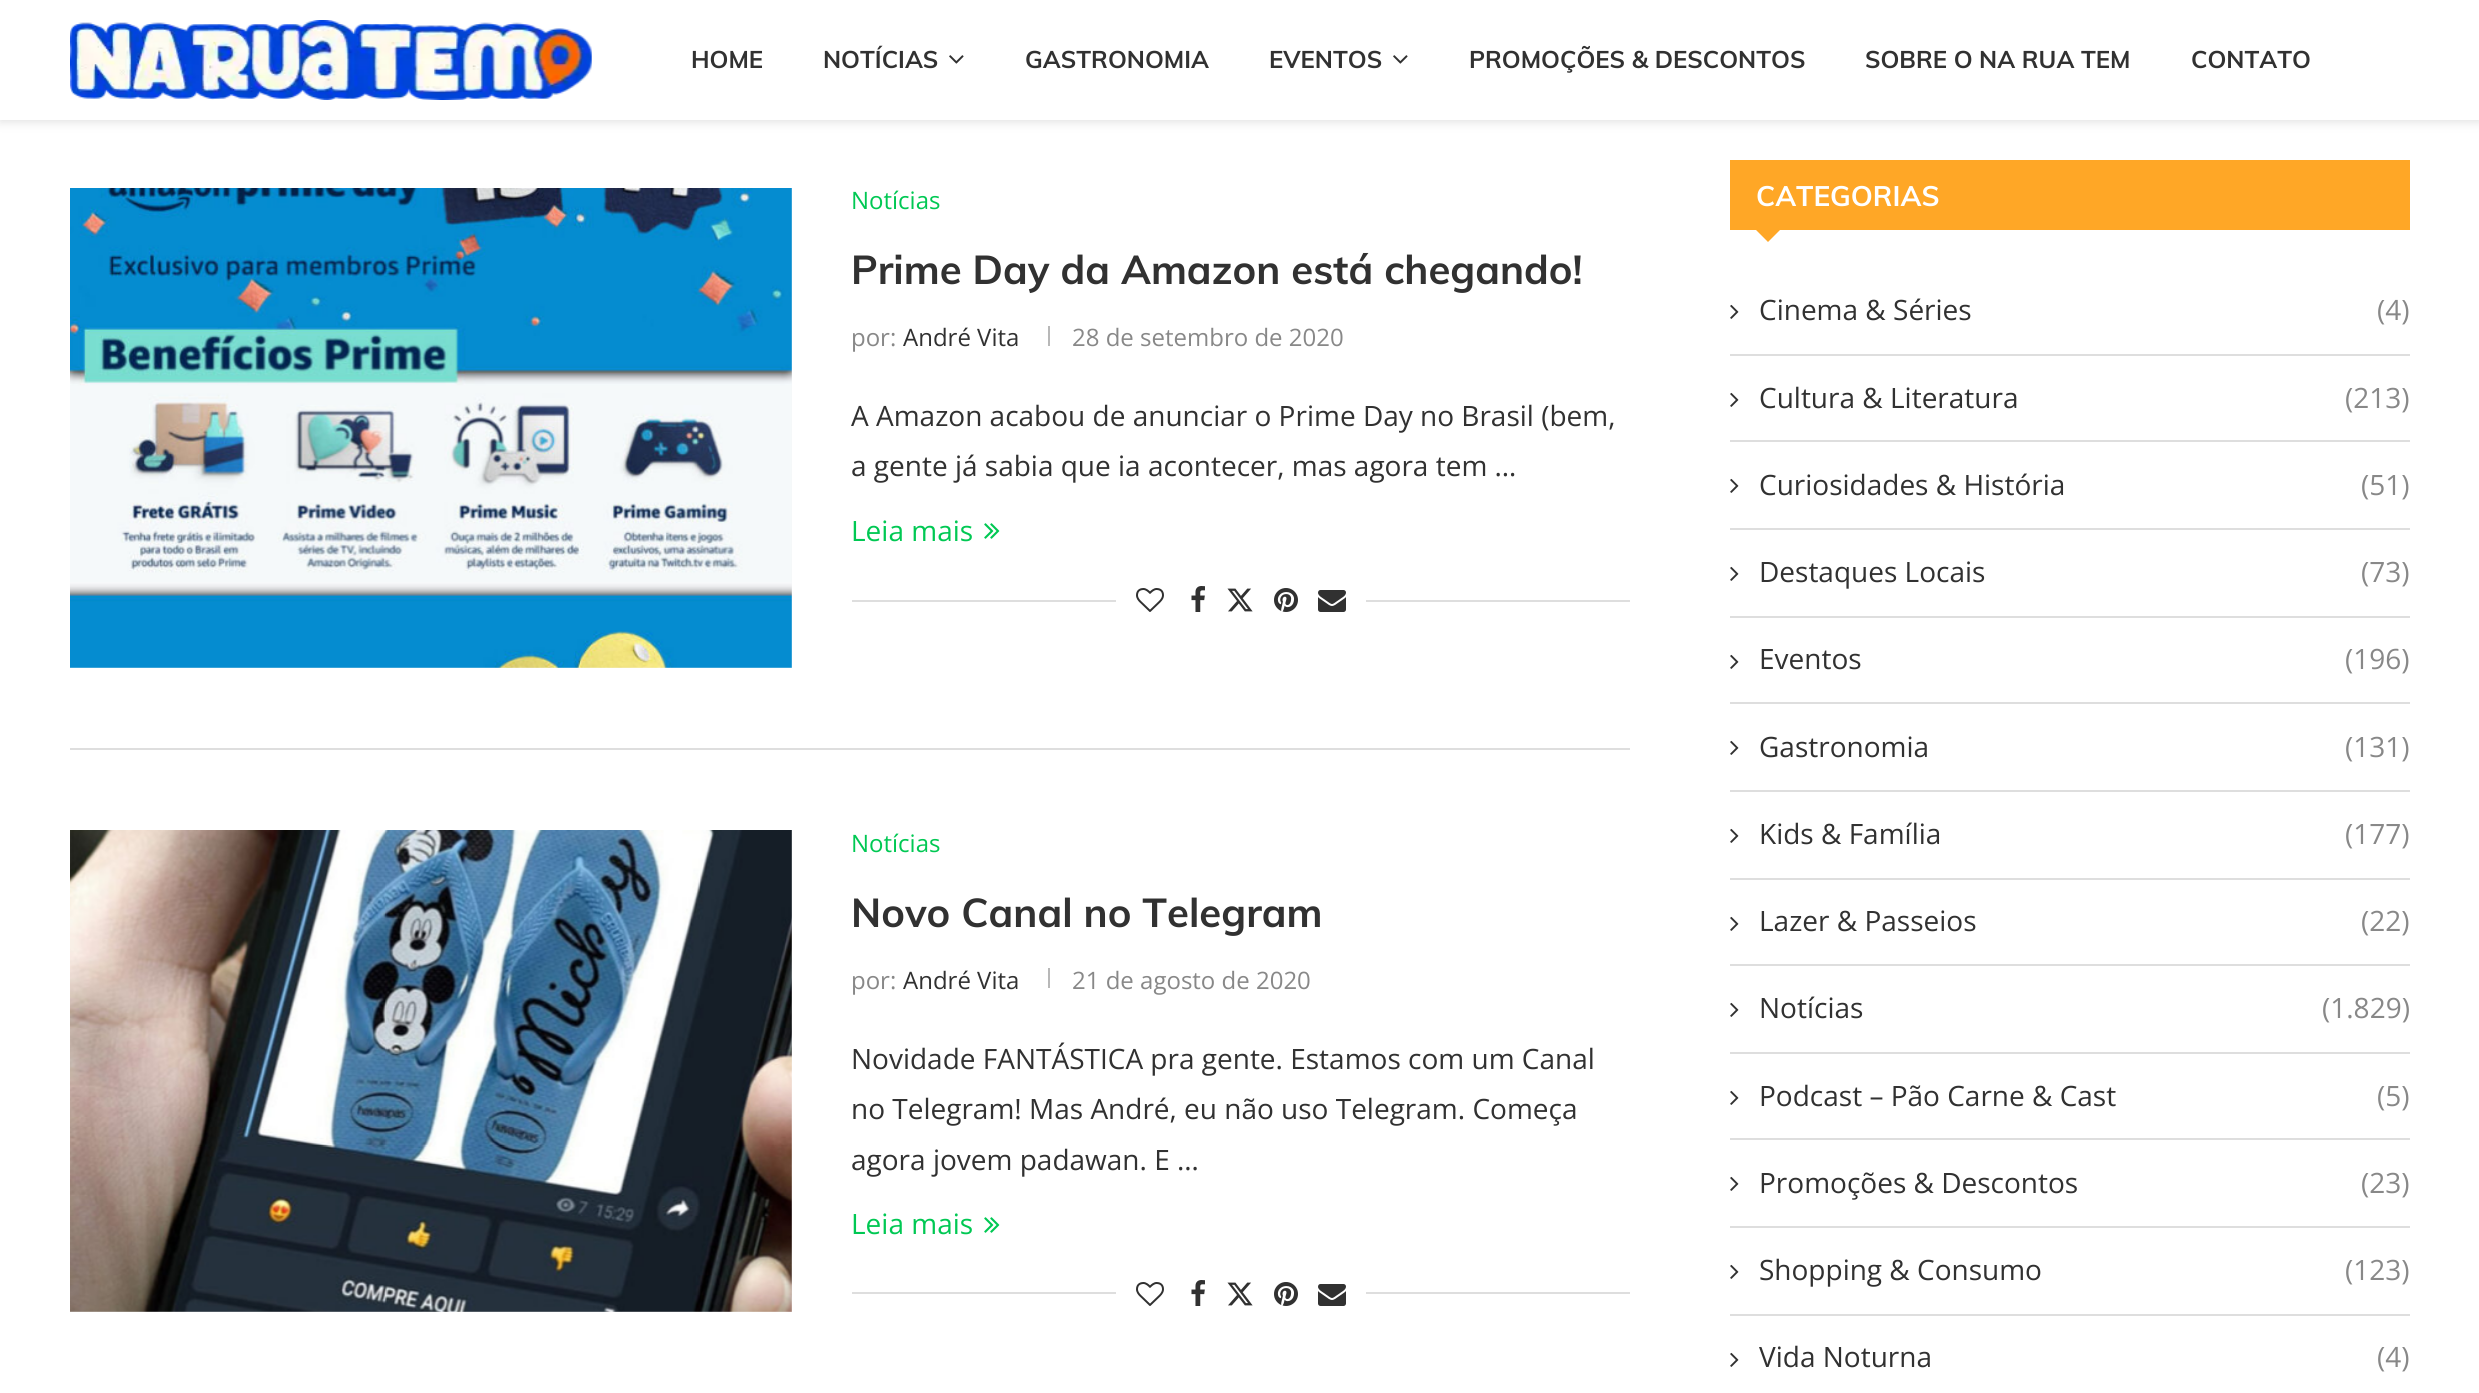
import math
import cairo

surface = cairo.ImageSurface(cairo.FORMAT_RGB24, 2479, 1393)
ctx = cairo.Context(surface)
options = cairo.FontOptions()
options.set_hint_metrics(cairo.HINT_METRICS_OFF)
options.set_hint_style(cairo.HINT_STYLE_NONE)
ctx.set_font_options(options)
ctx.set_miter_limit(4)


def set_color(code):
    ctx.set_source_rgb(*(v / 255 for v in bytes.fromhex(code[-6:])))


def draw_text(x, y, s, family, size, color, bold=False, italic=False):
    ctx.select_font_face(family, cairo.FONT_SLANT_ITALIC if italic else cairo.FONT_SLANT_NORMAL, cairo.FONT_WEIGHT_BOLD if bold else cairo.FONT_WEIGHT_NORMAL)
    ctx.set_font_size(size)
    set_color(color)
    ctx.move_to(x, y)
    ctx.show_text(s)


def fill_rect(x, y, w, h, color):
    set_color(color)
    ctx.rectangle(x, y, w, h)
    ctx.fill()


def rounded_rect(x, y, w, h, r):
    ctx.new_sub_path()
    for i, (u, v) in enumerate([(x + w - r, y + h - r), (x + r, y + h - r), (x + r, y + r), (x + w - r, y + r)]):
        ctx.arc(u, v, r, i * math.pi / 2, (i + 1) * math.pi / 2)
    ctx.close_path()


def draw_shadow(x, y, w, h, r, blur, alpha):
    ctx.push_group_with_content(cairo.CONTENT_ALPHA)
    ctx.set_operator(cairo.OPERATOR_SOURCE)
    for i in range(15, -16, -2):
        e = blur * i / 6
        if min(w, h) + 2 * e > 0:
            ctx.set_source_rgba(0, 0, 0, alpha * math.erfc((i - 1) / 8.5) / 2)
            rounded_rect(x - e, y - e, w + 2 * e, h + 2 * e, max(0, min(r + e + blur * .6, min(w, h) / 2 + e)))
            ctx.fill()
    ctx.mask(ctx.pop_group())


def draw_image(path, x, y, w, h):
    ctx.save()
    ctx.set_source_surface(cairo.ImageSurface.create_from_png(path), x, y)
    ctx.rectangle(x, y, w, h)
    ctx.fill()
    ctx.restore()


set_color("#ffffff")
ctx.paint()
set_color("#bebebe")
draw_shadow(0, 2, 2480, 120, 0, 5, 0.46)
fill_rect(0, 0, 2479, 120, "#ffffff")
draw_image("assets/img1.png", 70, 20, 522, 80)
draw_text(691, 68, "HOME", "Muli", 24, "#313131", bold=True)
draw_text(823, 68, "NOTÍCIAS", "Muli", 24, "#313131", bold=True)
draw_image("assets/img2.png", 949, 55, 15, 9)
draw_text(1025, 68, "GASTRONOMIA", "Muli", 24, "#313131", bold=True)
draw_text(1269, 68, "EVENTOS", "Muli", 24, "#313131", bold=True)
draw_image("assets/img2.png", 1393, 55, 15, 9)
draw_text(1469, 68, "PROMOÇÕES & DESCONTOS", "Muli", 24, "#313131", bold=True)
draw_text(1865, 68, "SOBRE O NA RUA TEM", "Muli", 24, "#313131", bold=True)
draw_text(2191, 68, "CONTATO", "Muli", 24, "#313131", bold=True)
fill_rect(70, 748, 1560, 2, "#dedede")
fill_rect(70, 188, 722, 480, "#f5f5f5")
draw_image("assets/img3.png", 70, 188, 722, 480)
draw_text(851, 209, "Notícias", "Open Sans", 24, "#00c853")
draw_text(851, 284, "Prime Day da Amazon está chegando!", "Muli", 40, "#313131", bold=True)
draw_text(851, 346, "por:", "Open Sans", 24, "#888888")
draw_text(903, 346, "André Vita", "Open Sans", 24, "#313131")
fill_rect(1048, 326, 2, 20, "#b8b8b8")
draw_text(1072, 346, "28 de setembro de 2020", "Open Sans", 24, "#888888")
draw_text(851, 426, "A Amazon acabou de anunciar o Prime Day no Brasil (bem,", "Open Sans", 28, "#313131")
draw_text(851, 476, "a gente já sabia que ia acontecer, mas agora tem …", "Open Sans", 28, "#313131")
draw_text(851, 541, "Leia mais", "Open Sans", 28, "#00c853")
draw_image("assets/img4.png", 984, 523, 16, 16)
fill_rect(852, 600, 778, 2, "#dedede")
fill_rect(1116, 600, 250, 2, "#ffffff")
draw_image("assets/img5.png", 1136, 588, 28, 24)
draw_image("assets/img6.png", 1191, 586, 14, 26)
draw_image("assets/img7.png", 1227, 588, 26, 24)
draw_image("assets/img8.png", 1274, 588, 24, 24)
draw_image("assets/img9.png", 1318, 590, 28, 22)
fill_rect(70, 830, 722, 482, "#f5f5f5")
draw_image("assets/img10.png", 70, 830, 722, 482)
draw_text(851, 852, "Notícias", "Open Sans", 24, "#00c853")
draw_text(851, 927, "Novo Canal no Telegram", "Muli", 40, "#313131", bold=True)
draw_text(851, 989, "por:", "Open Sans", 24, "#888888")
draw_text(903, 989, "André Vita", "Open Sans", 24, "#313131")
fill_rect(1048, 968, 2, 20, "#b8b8b8")
draw_text(1072, 989, "21 de agosto de 2020", "Open Sans", 24, "#888888")
draw_text(851, 1069, "Novidade FANTÁSTICA pra gente. Estamos com um Canal", "Open Sans", 28, "#313131")
draw_text(851, 1119, "no Telegram! Mas André, eu não uso Telegram. Começa", "Open Sans", 28, "#313131")
draw_text(851, 1170, "agora jovem padawan. E …", "Open Sans", 28, "#313131")
draw_text(851, 1234, "Leia mais", "Open Sans", 28, "#00c853")
draw_image("assets/img4.png", 984, 1217, 16, 16)
fill_rect(852, 1292, 778, 2, "#dedede")
fill_rect(1116, 1292, 250, 2, "#ffffff")
draw_image("assets/img5.png", 1136, 1282, 28, 24)
draw_image("assets/img6.png", 1191, 1280, 14, 26)
draw_image("assets/img7.png", 1227, 1282, 26, 24)
draw_image("assets/img8.png", 1274, 1282, 24, 24)
draw_image("assets/img9.png", 1318, 1284, 28, 22)
fill_rect(1730, 160, 680, 70, "#ffa726")
draw_text(1756, 206, "CATEGORIAS", "Muli", 28, "#ffffff", bold=True)
set_color("#ffa726")
ctx.new_path()
ctx.move_to(1756, 230)
ctx.line_to(1780, 230)
ctx.line_to(1768, 242)
ctx.close_path()
ctx.fill()
fill_rect(1730, 354, 680, 2, "#dedede")
draw_image("assets/img11.png", 1730, 304, 9, 15)
draw_text(1759, 320, "Cinema & Séries", "Open Sans", 28, "#313131")
draw_text(2377, 320, "(4)", "Open Sans", 28, "#888888")
fill_rect(1730, 440, 680, 2, "#dedede")
draw_image("assets/img11.png", 1730, 392, 9, 15)
draw_text(1759, 408, "Cultura & Literatura", "Open Sans", 28, "#313131")
draw_text(2345, 408, "(213)", "Open Sans", 28, "#888888")
fill_rect(1730, 528, 680, 2, "#dedede")
draw_image("assets/img11.png", 1730, 478, 9, 15)
draw_text(1759, 495, "Curiosidades & História", "Open Sans", 28, "#313131")
draw_text(2361, 495, "(51)", "Open Sans", 28, "#888888")
fill_rect(1730, 616, 680, 2, "#dedede")
draw_image("assets/img11.png", 1730, 566, 9, 15)
draw_text(1759, 582, "Destaques Locais", "Open Sans", 28, "#313131")
draw_text(2361, 582, "(73)", "Open Sans", 28, "#888888")
fill_rect(1730, 702, 680, 2, "#dedede")
draw_image("assets/img11.png", 1730, 654, 9, 15)
draw_text(1759, 669, "Eventos", "Open Sans", 28, "#313131")
draw_text(2345, 669, "(196)", "Open Sans", 28, "#888888")
fill_rect(1730, 790, 680, 2, "#dedede")
draw_image("assets/img11.png", 1730, 740, 9, 15)
draw_text(1759, 757, "Gastronomia", "Open Sans", 28, "#313131")
draw_text(2345, 757, "(131)", "Open Sans", 28, "#888888")
fill_rect(1730, 878, 680, 2, "#dedede")
draw_image("assets/img11.png", 1730, 828, 9, 15)
draw_text(1759, 844, "Kids & Família", "Open Sans", 28, "#313131")
draw_text(2345, 844, "(177)", "Open Sans", 28, "#888888")
fill_rect(1730, 964, 680, 2, "#dedede")
draw_image("assets/img11.png", 1730, 916, 9, 15)
draw_text(1759, 931, "Lazer & Passeios", "Open Sans", 28, "#313131")
draw_text(2361, 931, "(22)", "Open Sans", 28, "#888888")
fill_rect(1730, 1052, 680, 2, "#dedede")
draw_image("assets/img11.png", 1730, 1002, 9, 15)
draw_text(1759, 1018, "Notícias", "Open Sans", 28, "#313131")
draw_text(2322, 1018, "(1.829)", "Open Sans", 28, "#888888")
fill_rect(1730, 1138, 680, 2, "#dedede")
draw_image("assets/img11.png", 1730, 1090, 9, 15)
draw_text(1759, 1106, "Podcast – Pão Carne & Cast", "Open Sans", 28, "#313131")
draw_text(2377, 1106, "(5)", "Open Sans", 28, "#888888")
fill_rect(1730, 1226, 680, 2, "#dedede")
draw_image("assets/img11.png", 1730, 1176, 9, 15)
draw_text(1759, 1193, "Promoções & Descontos", "Open Sans", 28, "#313131")
draw_text(2361, 1193, "(23)", "Open Sans", 28, "#888888")
fill_rect(1730, 1314, 680, 2, "#dedede")
draw_image("assets/img11.png", 1730, 1264, 9, 15)
draw_text(1759, 1280, "Shopping & Consumo", "Open Sans", 28, "#313131")
draw_text(2345, 1280, "(123)", "Open Sans", 28, "#888888")
draw_image("assets/img11.png", 1730, 1352, 9, 15)
draw_text(1759, 1367, "Vida Noturna", "Open Sans", 28, "#313131")
draw_text(2377, 1367, "(4)", "Open Sans", 28, "#888888")
surface.write_to_png("output.png")
